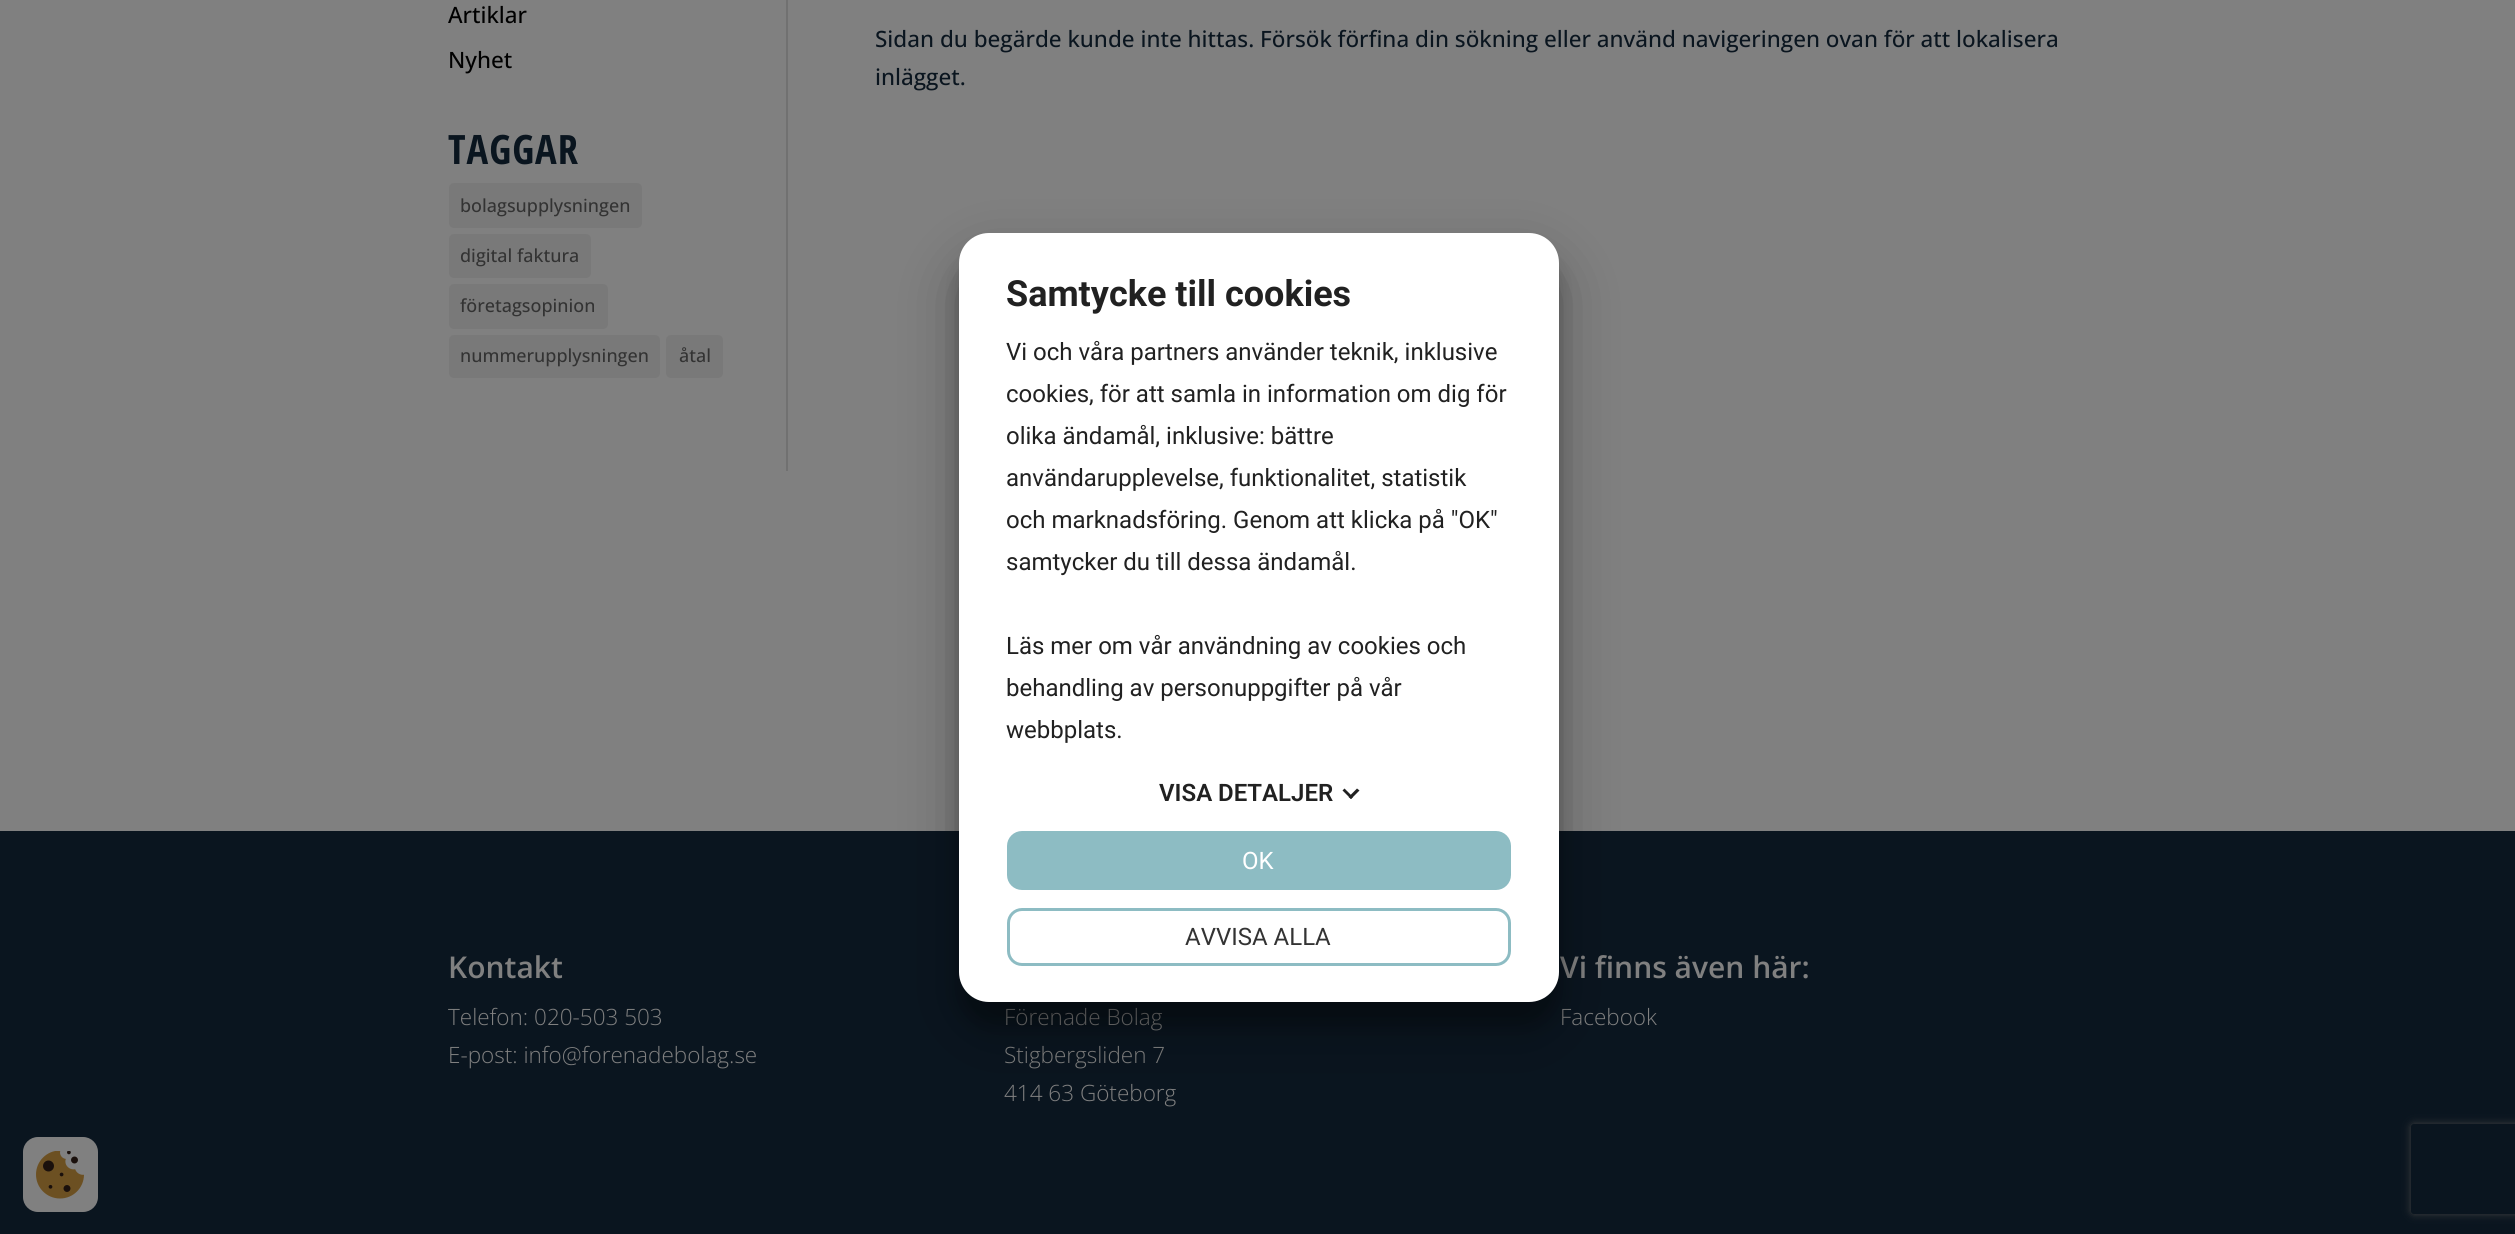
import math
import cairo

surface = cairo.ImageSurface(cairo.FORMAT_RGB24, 2515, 1234)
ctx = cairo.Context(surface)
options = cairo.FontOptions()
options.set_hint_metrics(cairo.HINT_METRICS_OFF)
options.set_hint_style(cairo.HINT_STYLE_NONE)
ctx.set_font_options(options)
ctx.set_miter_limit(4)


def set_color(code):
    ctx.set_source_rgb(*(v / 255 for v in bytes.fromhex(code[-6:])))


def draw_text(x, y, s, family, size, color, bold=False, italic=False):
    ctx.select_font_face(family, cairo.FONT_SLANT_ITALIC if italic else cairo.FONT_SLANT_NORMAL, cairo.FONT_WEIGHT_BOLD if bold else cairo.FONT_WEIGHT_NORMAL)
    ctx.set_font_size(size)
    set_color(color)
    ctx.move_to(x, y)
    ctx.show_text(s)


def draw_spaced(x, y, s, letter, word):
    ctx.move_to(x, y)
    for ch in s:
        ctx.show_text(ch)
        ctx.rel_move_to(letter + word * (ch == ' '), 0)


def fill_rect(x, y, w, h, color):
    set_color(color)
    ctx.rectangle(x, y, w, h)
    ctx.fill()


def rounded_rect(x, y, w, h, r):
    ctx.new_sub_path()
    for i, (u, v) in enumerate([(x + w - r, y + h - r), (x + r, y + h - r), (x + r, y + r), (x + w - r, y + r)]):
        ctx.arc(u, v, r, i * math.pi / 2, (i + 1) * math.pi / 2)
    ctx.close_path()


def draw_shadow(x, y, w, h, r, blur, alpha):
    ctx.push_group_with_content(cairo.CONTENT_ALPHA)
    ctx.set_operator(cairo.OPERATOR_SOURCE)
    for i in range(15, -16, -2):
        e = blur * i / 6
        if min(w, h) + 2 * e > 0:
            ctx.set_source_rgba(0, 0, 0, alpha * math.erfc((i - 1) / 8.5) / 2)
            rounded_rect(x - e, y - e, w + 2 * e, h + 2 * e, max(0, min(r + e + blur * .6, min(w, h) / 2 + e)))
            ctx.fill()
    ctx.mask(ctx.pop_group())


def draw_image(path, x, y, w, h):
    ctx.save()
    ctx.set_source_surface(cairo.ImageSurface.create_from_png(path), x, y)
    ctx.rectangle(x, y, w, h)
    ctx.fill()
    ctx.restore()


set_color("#808080")
ctx.paint()
fill_rect(786, 0, 2, 471, "#717171")
draw_text(448, 23, "Artiklar", "Open Sans Medium", 22.5, "#000000")
draw_text(448, 68, "Nyhet", "Open Sans Medium", 22.5, "#000000")
ctx.select_font_face("Open Sans Condensed", cairo.FONT_SLANT_NORMAL, cairo.FONT_WEIGHT_BOLD)
ctx.set_font_size(40.5)
set_color("#0a151f")
draw_spaced(448, 164, "TAGGAR", 1, 0)
set_color("#797979")
rounded_rect(449, 183, 193, 45, 5)
ctx.fill()
draw_text(460, 212, "bolagsupplysningen", "Open Sans Medium", 18, "#333333")
set_color("#797979")
rounded_rect(449, 234, 142, 44, 5)
ctx.fill()
draw_text(460, 262, "digital faktura", "Open Sans Medium", 18, "#333333")
set_color("#797979")
rounded_rect(449, 284, 159, 45, 5)
ctx.fill()
draw_text(460, 312, "företagsopinion", "Open Sans Medium", 18, "#333333")
set_color("#797979")
rounded_rect(449, 335, 211, 43, 5)
ctx.fill()
draw_text(460, 362, "nummerupplysningen", "Open Sans Medium", 18, "#333333")
set_color("#797979")
rounded_rect(666, 335, 57, 43, 5)
ctx.fill()
draw_text(679, 362, "åtal", "Open Sans Medium", 18, "#333333")
draw_text(875, 47, "Sidan du begärde kunde inte hittas. Försök förfina din sökning eller använd navigeringen ovan för att lokalisera", "Open Sans Medium", 22.5, "#0a151f")
draw_text(875, 85, "inlägget.", "Open Sans Medium", 22.5, "#0a151f")
fill_rect(0, 831, 2515, 403, "#0a151f")
draw_text(448, 978, "Kontakt", "Open Sans SemiBold", 30, "#808080")
draw_text(448, 1025, "Telefon: 020-503 503", "Open Sans Light", 22.5, "#808080")
draw_text(448, 1063, "E-post: info@forenadebolag.se", "Open Sans Light", 22.5, "#808080")
draw_text(1560, 978, "Vi finns även här:", "Open Sans SemiBold", 30, "#808080")
draw_text(1560, 1025, "Facebook", "Open Sans Light", 22.5, "#808080")
draw_text(1004, 1025, "Förenade Bolag", "Open Sans Light", 22.5, "#808080")
draw_text(1004, 1063, "Stigbergsliden 7", "Open Sans Light", 22.5, "#808080")
draw_text(1004, 1101, "414 63 Göteborg", "Open Sans Light", 22.5, "#808080")
set_color("#000000")
draw_shadow(959, 255, 600, 770, 30, 9, 0.22)
draw_shadow(959, 261, 600, 770, 30, 28.5, 0.3)
set_color("#ffffff")
rounded_rect(959, 233, 600, 769, 30)
ctx.fill()
draw_text(1006, 306, "Samtycke till cookies", "Roboto", 36, "#212121", bold=True)
draw_text(1006, 360, "Vi och våra partners använder teknik, inklusive", "Roboto", 24, "#212121")
draw_text(1006, 402, "cookies, för att samla in information om dig för", "Roboto", 24, "#212121")
draw_text(1006, 444, "olika ändamål, inklusive: bättre", "Roboto", 24, "#212121")
draw_text(1006, 486, "användarupplevelse, funktionalitet, statistik", "Roboto", 24, "#212121")
draw_text(1006, 528, "och marknadsföring. Genom att klicka på \"OK\"", "Roboto", 24, "#212121")
draw_text(1006, 570, "samtycker du till dessa ändamål.", "Roboto", 24, "#212121")
draw_text(1006, 654, "Läs mer om vår användning av cookies och", "Roboto", 24, "#212121")
draw_text(1006, 696, "behandling av personuppgifter på vår", "Roboto", 24, "#212121")
draw_text(1006, 738, "webbplats.", "Roboto", 24, "#212121")
draw_text(1159, 801, "VISA DETALJER", "Roboto SemiBold", 24, "#212121")
ctx.new_path()
ctx.move_to(1357, 788.5)
ctx.line_to(1359.5, 790.5)
ctx.line_to(1351, 799)
ctx.line_to(1348.5, 797)
ctx.close_path()
ctx.fill()
ctx.new_path()
ctx.move_to(1344.5, 788.5)
ctx.line_to(1353, 797)
ctx.line_to(1351, 799)
ctx.line_to(1342.5, 790.5)
ctx.close_path()
ctx.fill()
set_color("#8dbcc3")
rounded_rect(1008.5, 832.5, 501, 56, 13.5)
ctx.fill_preserve()
ctx.set_line_width(3)
ctx.stroke()
draw_text(1242, 869, "OK", "Roboto", 24, "#ffffff")
rounded_rect(1008.5, 909.5, 501, 55, 13.5)
set_color("#8dbcc3")
ctx.stroke()
draw_text(1185, 945, "AVVISA ALLA", "Roboto", 24, "#333333")
set_color("#808080")
rounded_rect(23, 1137, 75, 75, 15)
ctx.fill()
draw_image("assets/img1.png", 36, 1151, 48, 48)
ctx.save()
ctx.set_fill_rule(cairo.FILL_RULE_EVEN_ODD)
ctx.new_path()
ctx.move_to(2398, 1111)
ctx.line_to(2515, 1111)
ctx.line_to(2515, 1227)
ctx.line_to(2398, 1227)
ctx.close_path()
ctx.move_to(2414, 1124)
ctx.line_to(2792, 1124)
ctx.curve_to(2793.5, 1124, 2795, 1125.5, 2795, 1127)
ctx.line_to(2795, 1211)
ctx.curve_to(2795, 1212.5, 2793.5, 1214, 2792, 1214)
ctx.line_to(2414, 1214)
ctx.curve_to(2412.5, 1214, 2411, 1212.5, 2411, 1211)
ctx.line_to(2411, 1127)
ctx.curve_to(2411, 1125.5, 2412.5, 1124, 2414, 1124)
ctx.close_path()
ctx.clip()
set_color("#404040")
draw_shadow(2411, 1124, 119, 90, 3, 4, 1)
ctx.restore()
surface.write_to_png("output.png")
